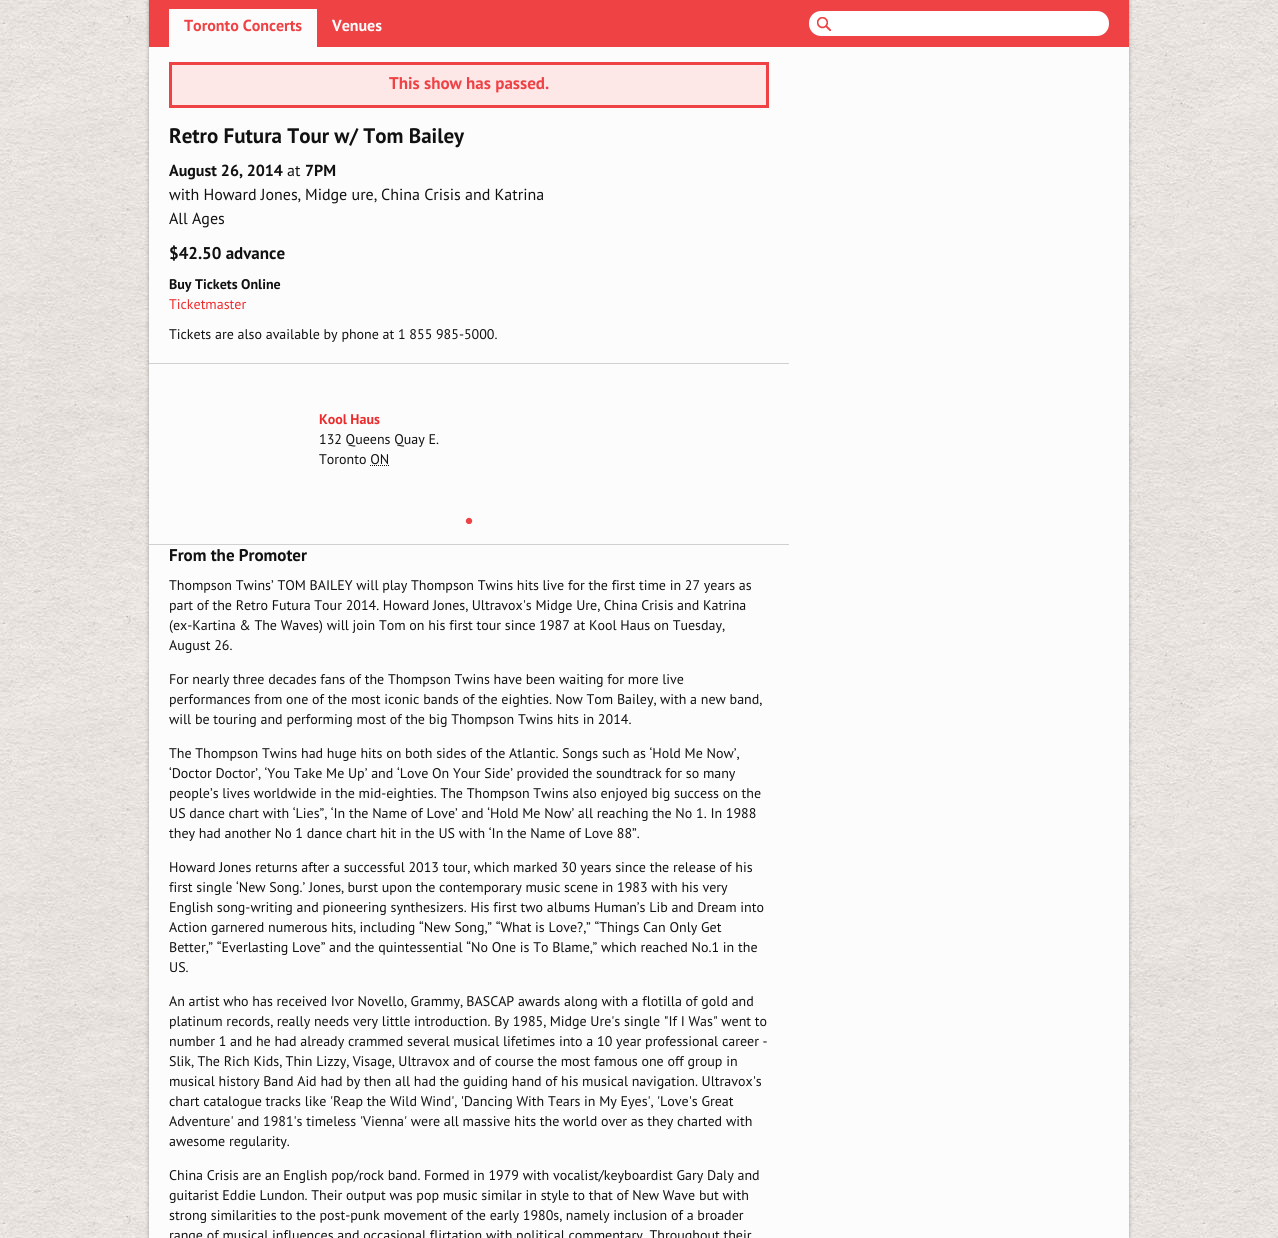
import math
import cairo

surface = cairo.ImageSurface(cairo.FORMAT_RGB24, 1278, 1238)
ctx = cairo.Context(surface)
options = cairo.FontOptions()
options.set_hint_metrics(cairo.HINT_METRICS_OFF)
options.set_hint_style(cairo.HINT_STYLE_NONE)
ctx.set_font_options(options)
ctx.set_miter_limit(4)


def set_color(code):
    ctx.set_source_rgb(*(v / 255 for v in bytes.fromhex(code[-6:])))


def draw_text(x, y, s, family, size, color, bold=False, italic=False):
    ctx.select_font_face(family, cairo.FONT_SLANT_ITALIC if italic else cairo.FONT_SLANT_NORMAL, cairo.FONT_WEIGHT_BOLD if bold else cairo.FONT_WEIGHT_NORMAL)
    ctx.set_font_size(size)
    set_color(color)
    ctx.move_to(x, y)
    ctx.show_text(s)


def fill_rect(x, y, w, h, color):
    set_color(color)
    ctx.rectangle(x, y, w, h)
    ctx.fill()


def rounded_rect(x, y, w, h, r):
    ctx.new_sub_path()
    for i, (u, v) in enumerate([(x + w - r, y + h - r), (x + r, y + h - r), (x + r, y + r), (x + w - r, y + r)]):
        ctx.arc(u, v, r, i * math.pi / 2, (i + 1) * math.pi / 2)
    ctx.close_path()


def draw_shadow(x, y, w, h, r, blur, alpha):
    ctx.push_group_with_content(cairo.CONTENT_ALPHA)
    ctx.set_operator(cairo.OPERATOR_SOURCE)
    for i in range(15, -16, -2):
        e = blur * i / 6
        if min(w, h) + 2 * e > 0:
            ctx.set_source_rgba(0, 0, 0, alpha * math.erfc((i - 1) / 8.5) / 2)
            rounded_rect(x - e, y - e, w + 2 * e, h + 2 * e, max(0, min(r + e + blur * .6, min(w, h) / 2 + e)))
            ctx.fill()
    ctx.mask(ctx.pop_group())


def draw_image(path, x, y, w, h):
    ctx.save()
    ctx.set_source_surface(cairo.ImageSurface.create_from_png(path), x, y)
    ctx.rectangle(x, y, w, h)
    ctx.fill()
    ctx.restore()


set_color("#ffffff")
ctx.paint()
draw_image("assets/img1.png", 0, 0, 1278, 1238)
set_color("#000000")
draw_shadow(149, -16, 980, 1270, 10, 2, 0.3)
fill_rect(149, 47, 980, 1191, "#fcfcfc")
fill_rect(149, 0, 980, 47, "#ef4244")
fill_rect(169, 9, 148, 38, "#fcfcfc")
draw_text(184, 31, "Toronto Concerts", "PT Sans", 16, "#ef4244", bold=True)
draw_text(332, 31, "Venues", "PT Sans", 16, "#ffffff", bold=True)
rounded_rect(809, 11, 300, 25, 12)
ctx.fill()
draw_image("assets/img2.png", 817, 17, 14, 14)
set_color("#fde7e7")
ctx.rectangle(170.5, 63.5, 597, 43)
ctx.fill_preserve()
set_color("#ef4244")
ctx.set_line_width(3)
ctx.stroke()
draw_text(389, 89, "This show has passed.", "PT Sans", 17, "#ef4244", bold=True)
draw_text(169, 143, "Retro Futura Tour w/ Tom Bailey", "PT Sans", 21, "#111111", bold=True)
draw_text(169, 176, "August 26, 2014", "PT Sans", 16, "#111111", bold=True)
draw_text(287, 176, "at", "PT Sans", 16, "#111111")
draw_text(305, 176, "7PM", "PT Sans", 16, "#111111", bold=True)
draw_text(169, 200, "with Howard Jones, Midge ure, China Crisis and Katrina", "PT Sans", 16, "#111111")
draw_text(169, 224, "All Ages", "PT Sans", 16, "#111111")
draw_text(169, 259, "$42.50 advance", "PT Sans", 17, "#111111", bold=True)
draw_text(169, 289, "Buy Tickets Online", "PT Sans", 14, "#111111", bold=True)
draw_text(169, 309, "Ticketmaster", "PT Sans", 14, "#ed2b2c")
draw_text(169, 339, "Tickets are also available by phone at 1 855 985-5000.", "PT Sans", 14, "#111111")
fill_rect(149, 363, 640, 1, "#d0d0d0")
fill_rect(149, 544, 640, 1, "#d0d0d0")
draw_text(319, 424, "Kool Haus", "PT Sans", 14, "#ed2b2c", bold=True)
draw_text(319, 444, "132 Queens Quay E.", "PT Sans", 14, "#111111")
draw_text(319, 464, "Toronto ON", "PT Sans", 14, "#111111")
ctx.new_path()
ctx.move_to(370, 465.5)
ctx.line_to(389, 465.5)
ctx.set_line_width(1)
ctx.set_dash([1, 1])
ctx.stroke()
draw_image("assets/img3.png", 465, 517, 8, 7)
draw_text(169, 561, "From the Promoter", "PT Sans", 17, "#111111", bold=True)
draw_text(169, 590, "Thompson Twins’ TOM BAILEY will play Thompson Twins hits live for the first time in 27 years as", "PT Sans", 14, "#111111")
draw_text(169, 610, "part of the Retro Futura Tour 2014. Howard Jones, Ultravox's Midge Ure, China Crisis and Katrina", "PT Sans", 14, "#111111")
draw_text(169, 630, "(ex-Kartina & The Waves) will join Tom on his first tour since 1987 at Kool Haus on Tuesday,", "PT Sans", 14, "#111111")
draw_text(169, 650, "August 26.", "PT Sans", 14, "#111111")
draw_text(169, 684, "For nearly three decades fans of the Thompson Twins have been waiting for more live", "PT Sans", 14, "#111111")
draw_text(169, 704, "performances from one of the most iconic bands of the eighties. Now Tom Bailey, with a new band,", "PT Sans", 14, "#111111")
draw_text(169, 724, "will be touring and performing most of the big Thompson Twins hits in 2014.", "PT Sans", 14, "#111111")
draw_text(169, 758, "The Thompson Twins had huge hits on both sides of the Atlantic. Songs such as ‘Hold Me Now’,", "PT Sans", 14, "#111111")
draw_text(169, 778, "‘Doctor Doctor’, ‘You Take Me Up’ and ‘Love On Your Side’ provided the soundtrack for so many", "PT Sans", 14, "#111111")
draw_text(169, 798, "people’s lives worldwide in the mid-eighties. The Thompson Twins also enjoyed big success on the", "PT Sans", 14, "#111111")
draw_text(169, 818, "US dance chart with ‘Lies”, ‘In the Name of Love’ and ‘Hold Me Now’ all reaching the No 1. In 1988", "PT Sans", 14, "#111111")
draw_text(169, 838, "they had another No 1 dance chart hit in the US with ‘In the Name of Love 88”.", "PT Sans", 14, "#111111")
draw_text(169, 872, "Howard Jones returns after a successful 2013 tour, which marked 30 years since the release of his", "PT Sans", 14, "#111111")
draw_text(169, 892, "first single ‘New Song.’ Jones, burst upon the contemporary music scene in 1983 with his very", "PT Sans", 14, "#111111")
draw_text(169, 912, "English song-writing and pioneering synthesizers. His first two albums Human’s Lib and Dream into", "PT Sans", 14, "#111111")
draw_text(169, 932, "Action garnered numerous hits, including “New Song,” “What is Love?,” “Things Can Only Get", "PT Sans", 14, "#111111")
draw_text(169, 952, "Better,” “Everlasting Love” and the quintessential “No One is To Blame,” which reached No.1 in the", "PT Sans", 14, "#111111")
draw_text(169, 972, "US.", "PT Sans", 14, "#111111")
draw_text(169, 1006, "An artist who has received Ivor Novello, Grammy, BASCAP awards along with a flotilla of gold and", "PT Sans", 14, "#111111")
draw_text(169, 1026, "platinum records, really needs very little introduction. By 1985, Midge Ure's single \"If I Was\" went to", "PT Sans", 14, "#111111")
draw_text(169, 1046, "number 1 and he had already crammed several musical lifetimes into a 10 year professional career -", "PT Sans", 14, "#111111")
draw_text(169, 1066, "Slik, The Rich Kids, Thin Lizzy, Visage, Ultravox and of course the most famous one off group in", "PT Sans", 14, "#111111")
draw_text(169, 1086, "musical history Band Aid had by then all had the guiding hand of his musical navigation. Ultravox's", "PT Sans", 14, "#111111")
draw_text(169, 1106, "chart catalogue tracks like 'Reap the Wild Wind', 'Dancing With Tears in My Eyes', 'Love's Great", "PT Sans", 14, "#111111")
draw_text(169, 1126, "Adventure' and 1981's timeless 'Vienna' were all massive hits the world over as they charted with", "PT Sans", 14, "#111111")
draw_text(169, 1146, "awesome regularity.", "PT Sans", 14, "#111111")
draw_text(169, 1180, "China Crisis are an English pop/rock band. Formed in 1979 with vocalist/keyboardist Gary Daly and", "PT Sans", 14, "#111111")
draw_text(169, 1200, "guitarist Eddie Lundon. Their output was pop music similar in style to that of New Wave but with", "PT Sans", 14, "#111111")
draw_text(169, 1220, "strong similarities to the post-punk movement of the early 1980s, namely inclusion of a broader", "PT Sans", 14, "#111111")
draw_text(169, 1240, "range of musical influences and occasional flirtation with political commentary. Throughout their", "PT Sans", 14, "#111111")
surface.write_to_png("output.png")
